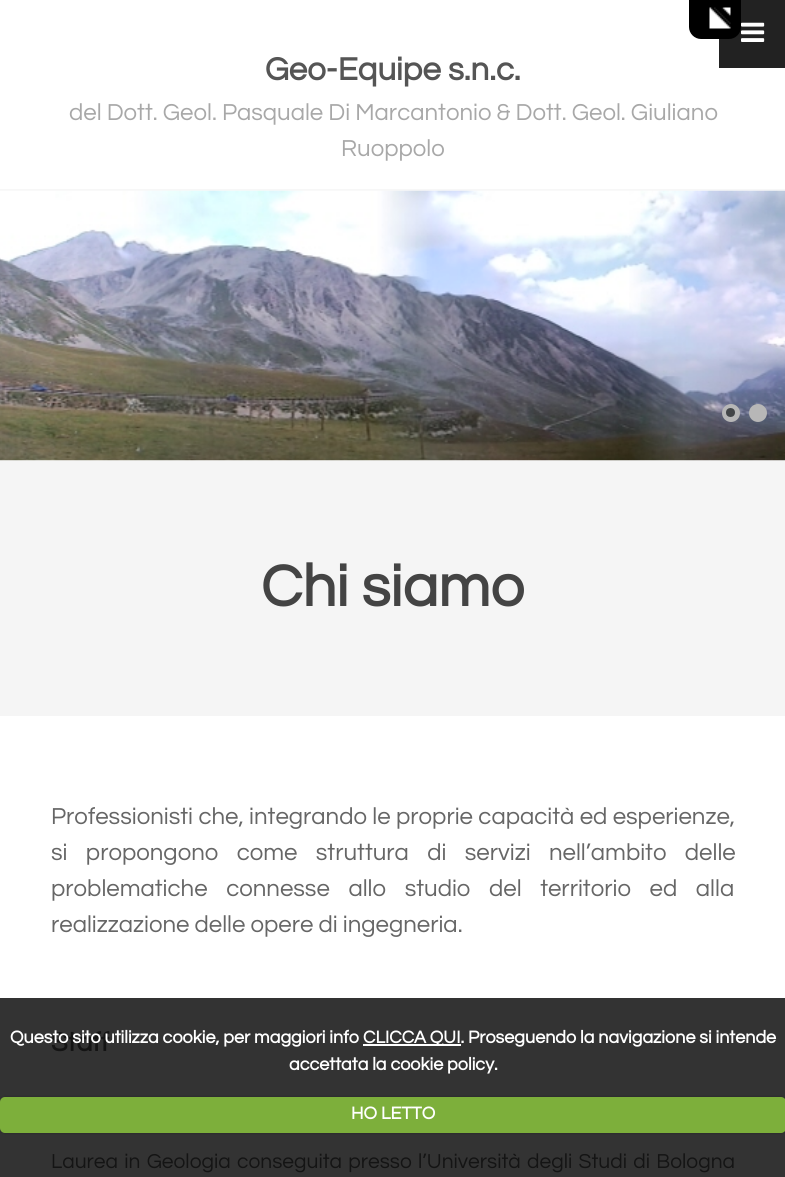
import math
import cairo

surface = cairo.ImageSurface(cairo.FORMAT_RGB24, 785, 1177)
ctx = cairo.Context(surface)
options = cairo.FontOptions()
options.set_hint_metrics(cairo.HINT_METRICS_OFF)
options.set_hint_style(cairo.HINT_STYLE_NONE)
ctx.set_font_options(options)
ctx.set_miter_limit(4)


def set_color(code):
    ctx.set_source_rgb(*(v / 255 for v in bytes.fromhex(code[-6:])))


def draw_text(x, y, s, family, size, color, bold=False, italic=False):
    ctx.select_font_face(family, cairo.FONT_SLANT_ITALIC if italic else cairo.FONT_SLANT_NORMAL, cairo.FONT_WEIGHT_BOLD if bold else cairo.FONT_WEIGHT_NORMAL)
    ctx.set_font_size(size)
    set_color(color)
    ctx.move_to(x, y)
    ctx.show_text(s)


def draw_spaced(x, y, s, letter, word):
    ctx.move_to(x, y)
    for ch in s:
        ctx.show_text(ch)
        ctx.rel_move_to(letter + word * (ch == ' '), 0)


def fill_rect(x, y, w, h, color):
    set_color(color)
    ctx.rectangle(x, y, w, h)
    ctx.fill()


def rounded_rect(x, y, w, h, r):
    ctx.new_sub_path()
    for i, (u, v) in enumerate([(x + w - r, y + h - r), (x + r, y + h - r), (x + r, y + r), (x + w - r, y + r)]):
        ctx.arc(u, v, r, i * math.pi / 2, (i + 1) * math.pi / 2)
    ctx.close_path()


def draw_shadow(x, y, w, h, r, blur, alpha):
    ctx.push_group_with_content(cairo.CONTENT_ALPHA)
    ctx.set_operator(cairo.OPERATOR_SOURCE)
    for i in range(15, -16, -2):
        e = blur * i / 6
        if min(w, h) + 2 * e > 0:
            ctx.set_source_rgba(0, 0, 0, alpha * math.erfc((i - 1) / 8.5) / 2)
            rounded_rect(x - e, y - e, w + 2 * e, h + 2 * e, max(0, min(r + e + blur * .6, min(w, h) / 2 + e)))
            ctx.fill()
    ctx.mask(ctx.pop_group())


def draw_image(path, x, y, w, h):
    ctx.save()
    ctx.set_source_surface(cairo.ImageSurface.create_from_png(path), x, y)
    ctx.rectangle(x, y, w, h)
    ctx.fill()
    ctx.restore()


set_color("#ffffff")
ctx.paint()
fill_rect(0, 998, 785, 179, "#333333")
fill_rect(719, 0, 66, 68, "#222222")
set_color("#000000")
ctx.new_path()
ctx.move_to(689, 0)
ctx.line_to(741, 0)
ctx.line_to(741, 27)
ctx.curve_to(741, 33.5, 735.5, 39, 729, 39)
ctx.line_to(701, 39)
ctx.curve_to(694.5, 39, 689, 33.5, 689, 27)
ctx.close_path()
ctx.fill()
draw_image("assets/img1.png", 709, 7, 22, 22)
draw_image("assets/img2.png", 741, 22, 24, 20)
fill_rect(0, 189, 785, 2, "#f7f7f7")
draw_text(265, 80, "Geo-Equipe s.n.c.", "Questrial", 33, "#555555", bold=True)
draw_text(69, 120, "del Dott. Geol. Pasquale Di Marcantonio & Dott. Geol. Giuliano", "Questrial", 24, "#a8a8a8")
draw_text(341, 156, "Ruoppolo", "Questrial", 24, "#a8a8a8")
draw_image("assets/img3.png", 0, 190, 785, 271)
set_color("#b7b7b7")
ctx.arc(731, 413, 9, 0, 2 * math.pi)
ctx.fill()
set_color("#434648")
ctx.arc(730.5, 412.5, 4.5, 0, 2 * math.pi)
ctx.fill()
set_color("#b7b7b7")
ctx.arc(758, 413, 9, 0, 2 * math.pi)
ctx.fill()
fill_rect(0, 461, 785, 255, "#f5f5f5")
draw_text(261, 606, "Chi siamo", "Questrial", 60, "#444444", bold=True)
ctx.select_font_face("Questrial")
ctx.set_font_size(24)
set_color("#666666")
draw_spaced(51, 824, "Professionisti che, integrando le proprie capacità ed esperienze,", 0, 0.25)
draw_spaced(51, 860, "si propongono come struttura di servizi nell’ambito delle", 0, 13.25)
draw_spaced(51, 896, "problematiche connesse allo studio del territorio ed alla", 0, 13.5)
draw_text(51, 932, "realizzazione delle opere di ingegneria.", "Questrial", 24, "#666666")
draw_text(51, 1051, "Staff", "Questrial", 27, "#141414", bold=True)
ctx.select_font_face("Questrial")
ctx.set_font_size(21)
draw_spaced(51, 1168, "Laurea in Geologia conseguita presso l’Università degli Studi di Bologna", 0, 1.75)
draw_text(10, 1043, "Questo sito utilizza cookie, per maggiori info", "Questrial", 18, "#ffffff", bold=True)
fill_rect(363, 1044, 98, 2, "#ffffff")
draw_text(363, 1043, "CLICCA QUI. Proseguendo la navigazione si intende", "Questrial", 18, "#ffffff", bold=True)
draw_text(289, 1070, "accettata la cookie policy.", "Questrial", 18, "#ffffff", bold=True)
set_color("#000000")
draw_shadow(0, 1097, 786, 36, 5, 1.5, 0.25)
set_color("#7daf3b")
rounded_rect(0, 1097, 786, 36, 5)
ctx.fill()
draw_text(351, 1119, "HO LETTO", "Questrial", 18, "#ffffff", bold=True)
surface.write_to_png("output.png")
